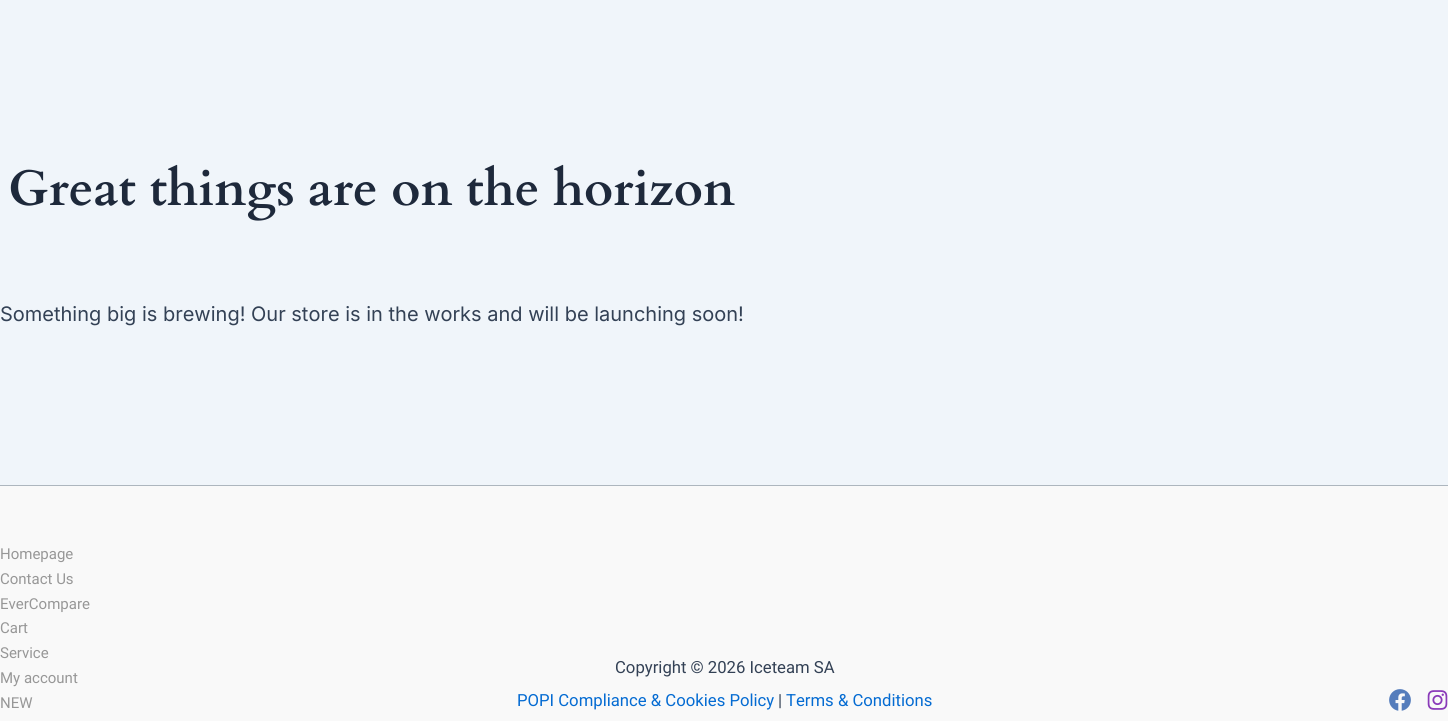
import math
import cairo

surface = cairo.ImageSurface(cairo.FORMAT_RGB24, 1448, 721)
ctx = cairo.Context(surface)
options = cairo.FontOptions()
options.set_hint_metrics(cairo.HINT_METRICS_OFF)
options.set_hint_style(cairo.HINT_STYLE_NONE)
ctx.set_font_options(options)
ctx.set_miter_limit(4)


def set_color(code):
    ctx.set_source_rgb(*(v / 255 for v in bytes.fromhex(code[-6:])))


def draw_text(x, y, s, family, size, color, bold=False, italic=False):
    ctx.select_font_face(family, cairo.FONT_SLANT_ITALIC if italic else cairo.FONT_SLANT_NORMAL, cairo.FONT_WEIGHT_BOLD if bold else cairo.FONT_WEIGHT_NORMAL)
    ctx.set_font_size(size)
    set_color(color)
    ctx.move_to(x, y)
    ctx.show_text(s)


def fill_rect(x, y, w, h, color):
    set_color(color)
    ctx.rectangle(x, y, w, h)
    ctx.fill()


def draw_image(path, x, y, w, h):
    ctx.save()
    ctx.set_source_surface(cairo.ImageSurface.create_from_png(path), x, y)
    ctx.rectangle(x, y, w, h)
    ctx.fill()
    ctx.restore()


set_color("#f0f5fa")
ctx.paint()
draw_text(8, 205, "Great things are on the horizon", "Cardo", 50, "#1e293b", bold=True)
draw_text(0, 321, "Something big is brewing! Our store is in the works and will be launching soon!", "Inter", 20, "#334155")
fill_rect(0, 486, 1448, 235, "#f9f9f9")
fill_rect(0, 485, 1448, 1, "#adb6be")
draw_text(0, 559, "Homepage", "Roboto", 15, "#979797")
draw_text(0, 584, "Contact Us", "Roboto", 15, "#979797")
draw_text(0, 609, "EverCompare", "Roboto", 15, "#979797")
draw_text(0, 633, "Cart", "Roboto", 15, "#979797")
draw_text(0, 658, "Service", "Roboto", 15, "#979797")
draw_text(0, 683, "My account", "Roboto", 15, "#979797")
draw_text(0, 708, "NEW", "Roboto", 15, "#979797")
draw_text(615, 673, "Copyright © 2026 Iceteam SA", "Roboto", 16.7, "#334155")
draw_text(517, 706, "POPI Compliance & Cookies Policy", "Roboto", 16.7, "#046bd2")
draw_text(778, 706, "|", "Roboto", 16.7, "#334155")
draw_text(786, 706, "Terms & Conditions", "Roboto", 16.7, "#046bd2")
draw_image("assets/img1.png", 1389, 689, 22, 22)
draw_image("assets/img2.png", 1427, 690, 21, 20)
surface.write_to_png("output.png")
